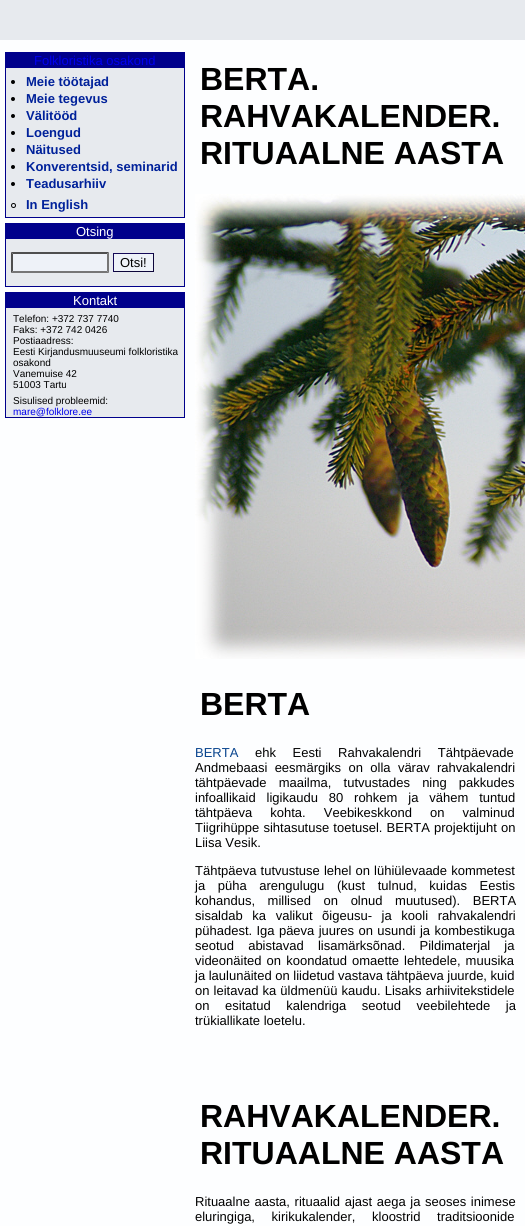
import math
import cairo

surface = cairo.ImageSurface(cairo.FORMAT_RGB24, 525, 1226)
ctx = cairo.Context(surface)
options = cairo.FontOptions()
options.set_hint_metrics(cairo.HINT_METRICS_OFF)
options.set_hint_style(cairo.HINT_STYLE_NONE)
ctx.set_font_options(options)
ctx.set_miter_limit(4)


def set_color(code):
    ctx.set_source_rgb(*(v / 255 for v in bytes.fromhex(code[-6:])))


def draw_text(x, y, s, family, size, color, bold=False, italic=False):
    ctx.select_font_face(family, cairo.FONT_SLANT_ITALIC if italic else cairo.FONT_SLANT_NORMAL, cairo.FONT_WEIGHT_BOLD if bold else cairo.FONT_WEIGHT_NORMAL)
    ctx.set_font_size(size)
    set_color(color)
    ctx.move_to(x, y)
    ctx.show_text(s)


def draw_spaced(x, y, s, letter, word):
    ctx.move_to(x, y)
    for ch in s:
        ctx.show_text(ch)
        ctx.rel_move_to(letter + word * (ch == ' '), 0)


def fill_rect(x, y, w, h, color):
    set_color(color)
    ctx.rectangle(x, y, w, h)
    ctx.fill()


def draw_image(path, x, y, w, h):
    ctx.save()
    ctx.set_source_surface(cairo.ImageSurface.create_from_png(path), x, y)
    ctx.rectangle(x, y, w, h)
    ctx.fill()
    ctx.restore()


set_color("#fdfeff")
ctx.paint()
fill_rect(0, 0, 525, 40, "#e7eaee")
fill_rect(6, 68, 178, 149, "#e7eaee")
ctx.rectangle(5.5, 52.5, 179, 165)
set_color("#00008b")
ctx.set_line_width(1)
ctx.stroke()
fill_rect(6, 53, 178, 15, "#00008b")
draw_text(34, 65, "Folkloristika osakond", "Liberation Sans", 13, "#0000ee")
set_color("#000000")
ctx.new_path()
ctx.arc(13, 82, 2, 0, 2 * math.pi)
ctx.fill()
draw_text(26, 86, "Meie töötajad", "Liberation Sans", 13, "#00219a", bold=True)
set_color("#000000")
ctx.new_path()
ctx.arc(13, 99, 2, 0, 2 * math.pi)
ctx.fill()
draw_text(26, 103, "Meie tegevus", "Liberation Sans", 13, "#00219a", bold=True)
set_color("#000000")
ctx.new_path()
ctx.arc(13, 116, 2, 0, 2 * math.pi)
ctx.fill()
draw_text(26, 120, "Välitööd", "Liberation Sans", 13, "#00219a", bold=True)
set_color("#000000")
ctx.new_path()
ctx.arc(13, 133, 2, 0, 2 * math.pi)
ctx.fill()
draw_text(26, 137, "Loengud", "Liberation Sans", 13, "#00219a", bold=True)
set_color("#000000")
ctx.new_path()
ctx.arc(13, 150, 2, 0, 2 * math.pi)
ctx.fill()
draw_text(26, 154, "Näitused", "Liberation Sans", 13, "#00219a", bold=True)
set_color("#000000")
ctx.new_path()
ctx.arc(13, 167, 2, 0, 2 * math.pi)
ctx.fill()
draw_text(26, 171, "Konverentsid, seminarid", "Liberation Sans", 13, "#00219a", bold=True)
set_color("#000000")
ctx.new_path()
ctx.arc(13, 184, 2, 0, 2 * math.pi)
ctx.fill()
draw_text(26, 188, "Teadusarhiiv", "Liberation Sans", 13, "#00219a", bold=True)
ctx.new_path()
ctx.arc(13.5, 205.5, 2, 0, 2 * math.pi)
set_color("#000000")
ctx.stroke()
draw_text(26, 209, "In English", "Liberation Sans", 13, "#00219a", bold=True)
fill_rect(6, 239, 178, 47, "#e7eaee")
ctx.rectangle(5.5, 223.5, 179, 63)
set_color("#00008b")
ctx.stroke()
fill_rect(6, 224, 178, 15, "#00008b")
draw_text(76, 236, "Otsing", "Liberation Sans", 13, "#ffffff")
fill_rect(11, 252, 98, 21, "#eef2f8")
set_color("#4f4f4f")
ctx.new_path()
ctx.move_to(11, 252)
ctx.line_to(109, 252)
ctx.line_to(107, 254)
ctx.line_to(13, 254)
ctx.close_path()
ctx.fill()
set_color("#767676")
ctx.new_path()
ctx.move_to(109, 252)
ctx.line_to(109, 273)
ctx.line_to(107, 271)
ctx.line_to(107, 254)
ctx.close_path()
ctx.fill()
ctx.new_path()
ctx.move_to(109, 273)
ctx.line_to(11, 273)
ctx.line_to(13, 271)
ctx.line_to(107, 271)
ctx.close_path()
ctx.fill()
set_color("#4f4f4f")
ctx.new_path()
ctx.move_to(11, 273)
ctx.line_to(11, 252)
ctx.line_to(13, 254)
ctx.line_to(13, 271)
ctx.close_path()
ctx.fill()
fill_rect(114, 254, 39, 17, "#eef2f8")
fill_rect(113, 253, 41, 1, "#140957")
fill_rect(153, 253, 1, 19, "#0d063a")
fill_rect(113, 271, 41, 1, "#0d063a")
fill_rect(113, 253, 1, 19, "#140957")
draw_text(120, 267, "Otsi!", "Liberation Sans", 13, "#000000")
fill_rect(6, 308, 178, 109, "#e7eaee")
ctx.rectangle(5.5, 292.5, 179, 125)
set_color("#00008b")
ctx.stroke()
fill_rect(6, 293, 178, 15, "#00008b")
draw_text(73, 305, "Kontakt", "Liberation Sans", 13, "#ffffff")
draw_text(13, 322, "Telefon: +372 737 7740", "Liberation Sans", 10, "#000000")
draw_text(13, 333, "Faks: +372 742 0426", "Liberation Sans", 10, "#000000")
draw_text(13, 344, "Postiaadress:", "Liberation Sans", 10, "#000000")
draw_text(13, 355, "Eesti Kirjandusmuuseumi folkloristika", "Liberation Sans", 10, "#000000")
draw_text(13, 366, "osakond", "Liberation Sans", 10, "#000000")
draw_text(13, 377, "Vanemuise 42", "Liberation Sans", 10, "#000000")
draw_text(13, 388, "51003 Tartu", "Liberation Sans", 10, "#000000")
draw_text(13, 404, "Sisulised probleemid:", "Liberation Sans", 10, "#000000")
draw_text(13, 415, "mare@folklore.ee", "Liberation Sans", 10, "#0000ee")
draw_text(200, 90, "BERTA.", "Liberation Sans", 32, "#000000", bold=True)
draw_text(200, 127, "RAHVAKALENDER.", "Liberation Sans", 32, "#000000", bold=True)
draw_text(200, 164, "RITUAALNE AASTA", "Liberation Sans", 32, "#000000", bold=True)
draw_image("assets/img1.png", 195, 194, 330, 465)
draw_text(200, 715, "BERTA", "Liberation Sans", 32, "#000000", bold=True)
draw_text(195, 757, "BERTA", "Liberation Sans", 13, "#08448e")
set_color("#000000")
draw_spaced(255, 757, "ehk Eesti Rahvakalendri Tähtpäevade", 0, 13)
draw_spaced(195, 772, "Andmebaasi eesmärgiks on olla värav rahvakalendri", 0, 3.75)
draw_spaced(195, 787, "tähtpäevade maailma, tutvustades ning pakkudes", 0, 8.5)
draw_spaced(195, 802, "infoallikaid ligikaudu 80 rohkem ja vähem tuntud", 0, 7.25)
draw_spaced(195, 817, "tähtpäeva kohta. Veebikeskkond on valminud", 0, 14.5)
draw_spaced(195, 832, "Tiigrihüppe sihtasutuse toetusel. BERTA projektijuht on", 0, 0.5)
draw_text(195, 847, "Liisa Vesik.", "Liberation Sans", 13, "#000000")
draw_spaced(195, 875, "Tähtpäeva tutvustuse lehel on lühiülevaade kommetest", 0, 0.5)
draw_spaced(195, 890, "ja püha arengulugu (kust tulnud, kuidas Eestis", 0, 9)
draw_spaced(195, 905, "kohandus, millised on olnud muutused). BERTA", 0, 9)
draw_spaced(195, 920, "sisaldab ka valikut õigeusu- ja kooli rahvakalendri", 0, 6)
draw_spaced(195, 935, "pühadest. Iga päeva juures on usundi ja kombestikuga", 0, 0.75)
draw_spaced(195, 950, "seotud abistavad lisamärksõnad. Pildimaterjal ja", 0, 10.5)
draw_spaced(195, 965, "videonäited on koondatud omaette lehtedele, muusika", 0, 1.5)
draw_text(195, 980, "ja laulunäited on liidetud vastava tähtpäeva juurde, kuid", "Liberation Sans", 13, "#000000")
draw_spaced(195, 995, "on leitavad ka üldmenüü kaudu. Lisaks arhiivitekstidele", 0, 0.5)
draw_spaced(195, 1010, "on esitatud kalendriga seotud veebilehtede ja", 0, 12)
draw_text(195, 1025, "trükiallikate loetelu.", "Liberation Sans", 13, "#000000")
draw_text(200, 1127, "RAHVAKALENDER.", "Liberation Sans", 32, "#000000", bold=True)
draw_text(200, 1164, "RITUAALNE AASTA", "Liberation Sans", 32, "#000000", bold=True)
ctx.select_font_face("Liberation Sans")
ctx.set_font_size(13)
draw_spaced(195, 1206, "Rituaalne aasta, rituaalid ajast aega ja seoses inimese", 0, 1)
draw_spaced(195, 1221, "eluringiga, kirikukalender, kloostrid traditsioonide", 0, 13)
surface.write_to_png("output.png")
